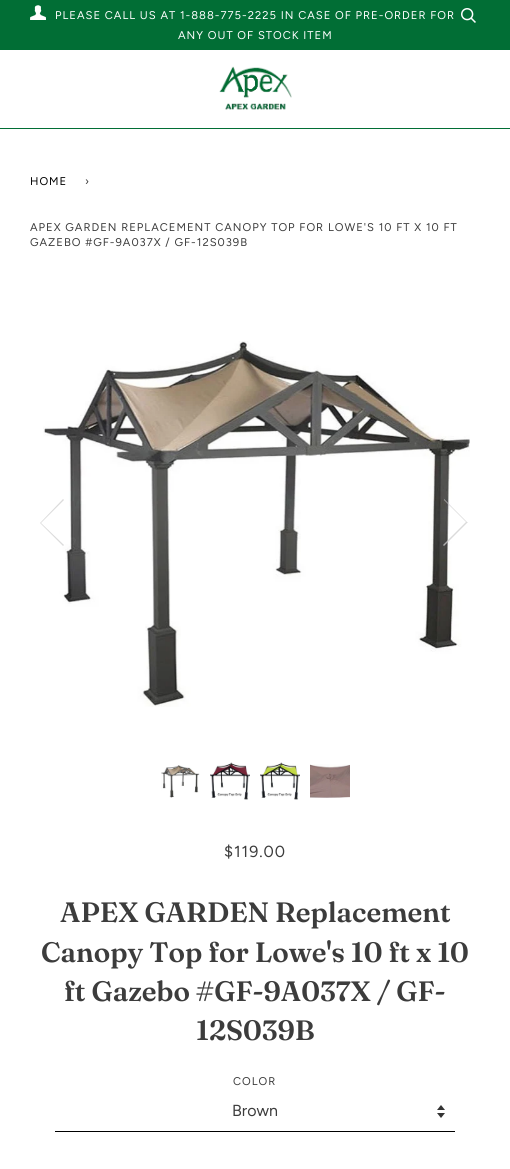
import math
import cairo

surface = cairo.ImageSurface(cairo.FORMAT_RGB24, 510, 1169)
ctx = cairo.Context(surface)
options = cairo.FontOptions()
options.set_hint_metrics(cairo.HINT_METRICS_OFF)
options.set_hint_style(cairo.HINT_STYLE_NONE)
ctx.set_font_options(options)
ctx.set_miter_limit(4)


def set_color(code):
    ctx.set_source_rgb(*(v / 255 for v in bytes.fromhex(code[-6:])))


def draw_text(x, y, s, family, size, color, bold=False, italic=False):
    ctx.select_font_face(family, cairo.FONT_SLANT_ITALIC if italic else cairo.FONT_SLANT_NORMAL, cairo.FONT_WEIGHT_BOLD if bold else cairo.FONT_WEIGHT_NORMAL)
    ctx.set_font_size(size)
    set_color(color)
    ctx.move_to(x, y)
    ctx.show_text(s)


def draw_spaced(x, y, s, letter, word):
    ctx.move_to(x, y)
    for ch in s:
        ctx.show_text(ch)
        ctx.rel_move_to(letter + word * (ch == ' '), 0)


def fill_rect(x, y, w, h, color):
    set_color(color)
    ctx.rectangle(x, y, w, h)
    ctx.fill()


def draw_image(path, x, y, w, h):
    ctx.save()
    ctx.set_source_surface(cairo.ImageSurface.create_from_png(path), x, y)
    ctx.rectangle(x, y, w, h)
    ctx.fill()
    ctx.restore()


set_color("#ffffff")
ctx.paint()
fill_rect(0, 0, 510, 50, "#016e35")
draw_image("assets/img1.png", 30, 5, 16, 15)
ctx.select_font_face("Figtree")
ctx.set_font_size(11.2)
set_color("#ffffff")
draw_spaced(55, 19, "PLEASE CALL US AT 1-888-775-2225 IN CASE OF PRE-ORDER FOR", 1, 0)
draw_spaced(178, 39, "ANY OUT OF STOCK ITEM", 1, 0)
draw_image("assets/img2.png", 461, 8, 15, 15)
fill_rect(0, 128, 510, 1, "#016e35")
draw_image("assets/img3.png", 219, 66, 73, 44)
set_color("#000000")
draw_spaced(30, 185, "HOME", 1, 0)
set_color("#3c3c3c")
draw_spaced(85, 185, "›", 1, 0)
draw_spaced(30, 231, "APEX GARDEN REPLACEMENT CANOPY TOP FOR LOWE'S 10 FT X 10 FT", 1, 0)
draw_spaced(30, 246, "GAZEBO #GF-9A037X / GF-12S039B", 1, 0)
draw_image("assets/img4.png", 43, 341, 427, 366)
set_color("#dbdbdb")
ctx.new_path()
ctx.move_to(40, 523)
ctx.line_to(63, 546)
ctx.line_to(64, 545)
ctx.line_to(41, 523)
ctx.line_to(64, 500)
ctx.line_to(63, 499)
ctx.close_path()
ctx.fill()
ctx.set_source_rgba(0.812, 0.812, 0.812, 0.75)
ctx.new_path()
ctx.move_to(467, 522)
ctx.line_to(444, 499)
ctx.line_to(444, 500)
ctx.line_to(466, 522)
ctx.line_to(443, 545)
ctx.line_to(444, 546)
ctx.line_to(468, 522)
ctx.close_path()
ctx.fill()
draw_image("assets/img5.png", 161, 765, 39, 33)
draw_image("assets/img6.png", 210, 762, 40, 38)
draw_image("assets/img7.png", 260, 762, 40, 38)
draw_image("assets/img8.png", 310, 764, 40, 34)
ctx.set_font_size(16)
set_color("#3c3c3c")
draw_spaced(224, 857, "$119.00", 1, 0)
draw_text(60, 922, "APEX GARDEN Replacement", "Fraunces SemiBold", 28, "#3c3c3c")
draw_text(41, 962, "Canopy Top for Lowe's 10 ft x 10", "Fraunces SemiBold", 28, "#3c3c3c")
draw_text(64, 1001, "ft Gazebo #GF-9A037X / GF-", "Fraunces SemiBold", 28, "#3c3c3c")
draw_text(196, 1040, "12S039B", "Fraunces SemiBold", 28, "#3c3c3c")
ctx.select_font_face("Figtree")
ctx.set_font_size(11.2)
draw_spaced(233, 1085, "COLOR", 1, 0)
draw_image("assets/img9.png", 437, 1105, 8, 13)
fill_rect(55, 1131, 400, 1, "#000000")
draw_text(232, 1116, "Brown", "Figtree", 16, "#3c3c3c")
surface.write_to_png("output.png")
